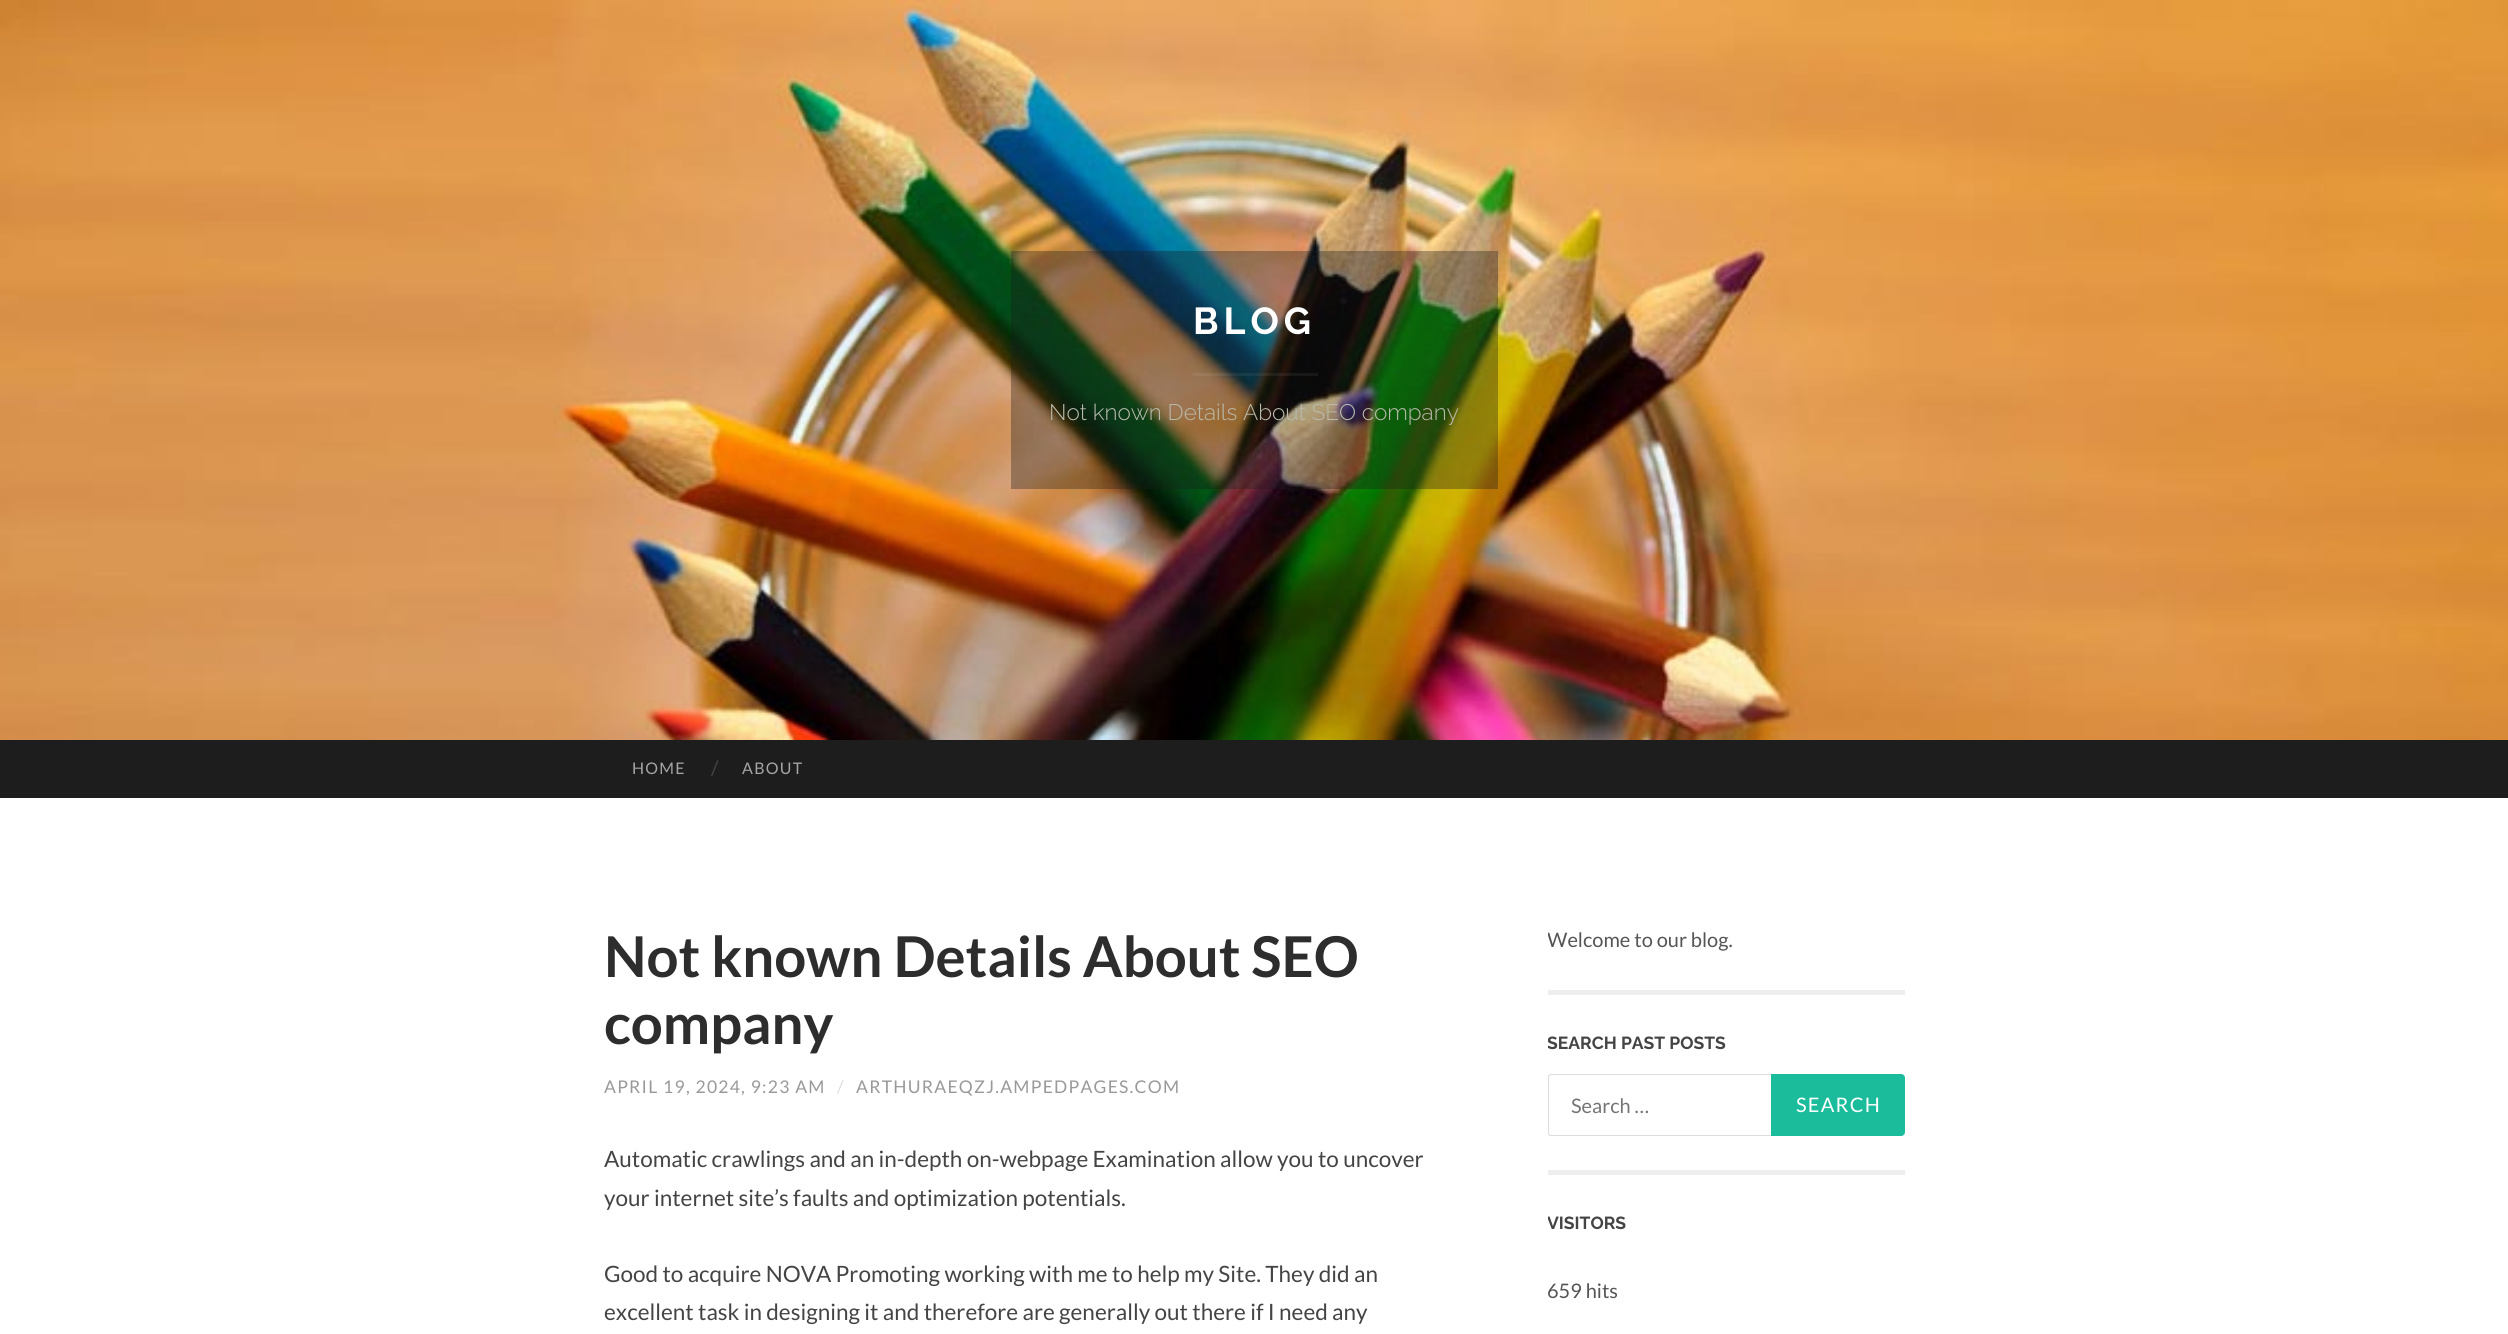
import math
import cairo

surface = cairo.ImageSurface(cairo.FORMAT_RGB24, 2508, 1334)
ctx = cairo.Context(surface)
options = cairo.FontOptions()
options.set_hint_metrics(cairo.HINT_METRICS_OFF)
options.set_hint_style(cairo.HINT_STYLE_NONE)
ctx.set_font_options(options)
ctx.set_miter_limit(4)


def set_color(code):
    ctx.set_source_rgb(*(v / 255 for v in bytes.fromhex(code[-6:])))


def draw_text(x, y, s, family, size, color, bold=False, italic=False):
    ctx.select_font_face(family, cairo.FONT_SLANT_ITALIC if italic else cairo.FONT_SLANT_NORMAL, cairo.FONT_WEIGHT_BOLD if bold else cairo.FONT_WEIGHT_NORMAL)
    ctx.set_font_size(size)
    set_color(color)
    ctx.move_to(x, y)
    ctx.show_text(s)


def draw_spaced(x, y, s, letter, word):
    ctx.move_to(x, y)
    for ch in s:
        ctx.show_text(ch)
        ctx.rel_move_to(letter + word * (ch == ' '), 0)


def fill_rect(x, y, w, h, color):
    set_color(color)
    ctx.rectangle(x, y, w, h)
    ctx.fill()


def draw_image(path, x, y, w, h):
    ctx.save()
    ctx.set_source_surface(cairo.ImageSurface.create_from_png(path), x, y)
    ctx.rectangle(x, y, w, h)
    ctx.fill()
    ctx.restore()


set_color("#ffffff")
ctx.paint()
draw_image("assets/img1.png", 0, 0, 2508, 740)
ctx.set_source_rgba(0.114, 0.114, 0.114, 0.34)
ctx.rectangle(1011, 251, 487, 238)
ctx.fill()
ctx.select_font_face("Raleway", cairo.FONT_SLANT_NORMAL, cairo.FONT_WEIGHT_BOLD)
ctx.set_font_size(37.5)
set_color("#ffffff")
draw_spaced(1193, 334, "BLOG", 5, 0)
ctx.set_source_rgba(1, 1, 1, 0.06)
ctx.rectangle(1193, 373, 125, 3)
ctx.fill()
draw_text(1049, 420, "Not known Details About SEO company", "Raleway Light", 22.5, "#b8baab")
fill_rect(0, 740, 2508, 58, "#1d1d1d")
ctx.select_font_face("Lato")
ctx.set_font_size(16)
set_color("#a5a5a5")
draw_spaced(632, 774, "HOME", 1.25, 0)
draw_text(711, 775, "/", "Lato", 20, "#444444")
ctx.set_font_size(16)
set_color("#a5a5a5")
draw_spaced(742, 774, "ABOUT", 1.25, 0)
draw_text(604, 977, "Not known Details About SEO", "Lato", 56.25, "#2d2d2d", bold=True)
draw_text(604, 1044, "company", "Lato", 56.25, "#2d2d2d", bold=True)
ctx.select_font_face("Lato")
ctx.set_font_size(17.5)
set_color("#999999")
draw_spaced(604, 1093, "APRIL 19, 2024, 9:23 AM", 1.25, 0)
set_color("#dddddd")
draw_spaced(837, 1093, "/", 1.25, 0)
set_color("#999999")
draw_spaced(856, 1093, "ARTHURAEQZJ.AMPEDPAGES.COM", 1.25, 0)
draw_text(604, 1167, "Automatic crawlings and an in-depth on-webpage Examination allow you to uncover", "Lato", 22.5, "#444444")
draw_text(604, 1206, "your internet site’s faults and optimization potentials.", "Lato", 22.5, "#444444")
draw_text(604, 1282, "Good to acquire NOVA Promoting working with me to help my Site. They did an", "Lato", 22.5, "#444444")
draw_text(604, 1320, "excellent task in designing it and therefore are generally out there if I need any", "Lato", 22.5, "#444444")
fill_rect(1548, 990, 357, 5, "#eeeeee")
ctx.save()
ctx.rectangle(1548, 923, 357, 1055)
ctx.clip()
draw_text(1547, 947, "Welcome to our blog.", "Lato", 20, "#555555")
ctx.restore()
fill_rect(1548, 1170, 357, 5, "#eeeeee")
ctx.save()
ctx.rectangle(1548, 923, 357, 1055)
ctx.clip()
draw_text(1547, 1049, "SEARCH PAST POSTS", "Raleway", 17.5, "#444444", bold=True)
ctx.restore()
set_color("#dddddd")
ctx.set_fill_rule(cairo.FILL_RULE_EVEN_ODD)
ctx.new_path()
ctx.move_to(1551, 1074)
ctx.line_to(1901, 1074)
ctx.line_to(1901, 1136)
ctx.line_to(1551, 1136)
ctx.curve_to(1549, 1136, 1548, 1135, 1548, 1132)
ctx.line_to(1548, 1078)
ctx.curve_to(1548, 1075, 1549, 1074, 1551, 1074)
ctx.close_path()
ctx.move_to(1551, 1075)
ctx.line_to(1901, 1075)
ctx.line_to(1901, 1135)
ctx.line_to(1551, 1135)
ctx.curve_to(1550, 1135, 1549, 1134, 1549, 1132)
ctx.line_to(1549, 1078)
ctx.curve_to(1549, 1076, 1550, 1075, 1551, 1075)
ctx.close_path()
ctx.fill()
draw_text(1571, 1113, "Search …", "Lato", 20, "#757575")
set_color("#1abc9c")
ctx.new_path()
ctx.move_to(1771.5, 1074.5)
ctx.line_to(1901, 1074.5)
ctx.curve_to(1903, 1074.5, 1904.5, 1076, 1904.5, 1078)
ctx.line_to(1904.5, 1132)
ctx.curve_to(1904.5, 1134, 1903, 1135.5, 1901, 1135.5)
ctx.line_to(1771.5, 1135.5)
ctx.close_path()
ctx.fill_preserve()
ctx.set_line_width(1)
ctx.stroke()
set_color("#ffffff")
draw_spaced(1796, 1112, "SEARCH", 1.25, 0)
ctx.save()
ctx.set_fill_rule(cairo.FILL_RULE_WINDING)
ctx.rectangle(1548, 923, 357, 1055)
ctx.clip()
draw_text(1547, 1229, "VISITORS", "Raleway", 17.5, "#444444", bold=True)
ctx.restore()
draw_text(1547, 1298, "659 hits", "Lato", 20, "#555555")
surface.write_to_png("output.png")
